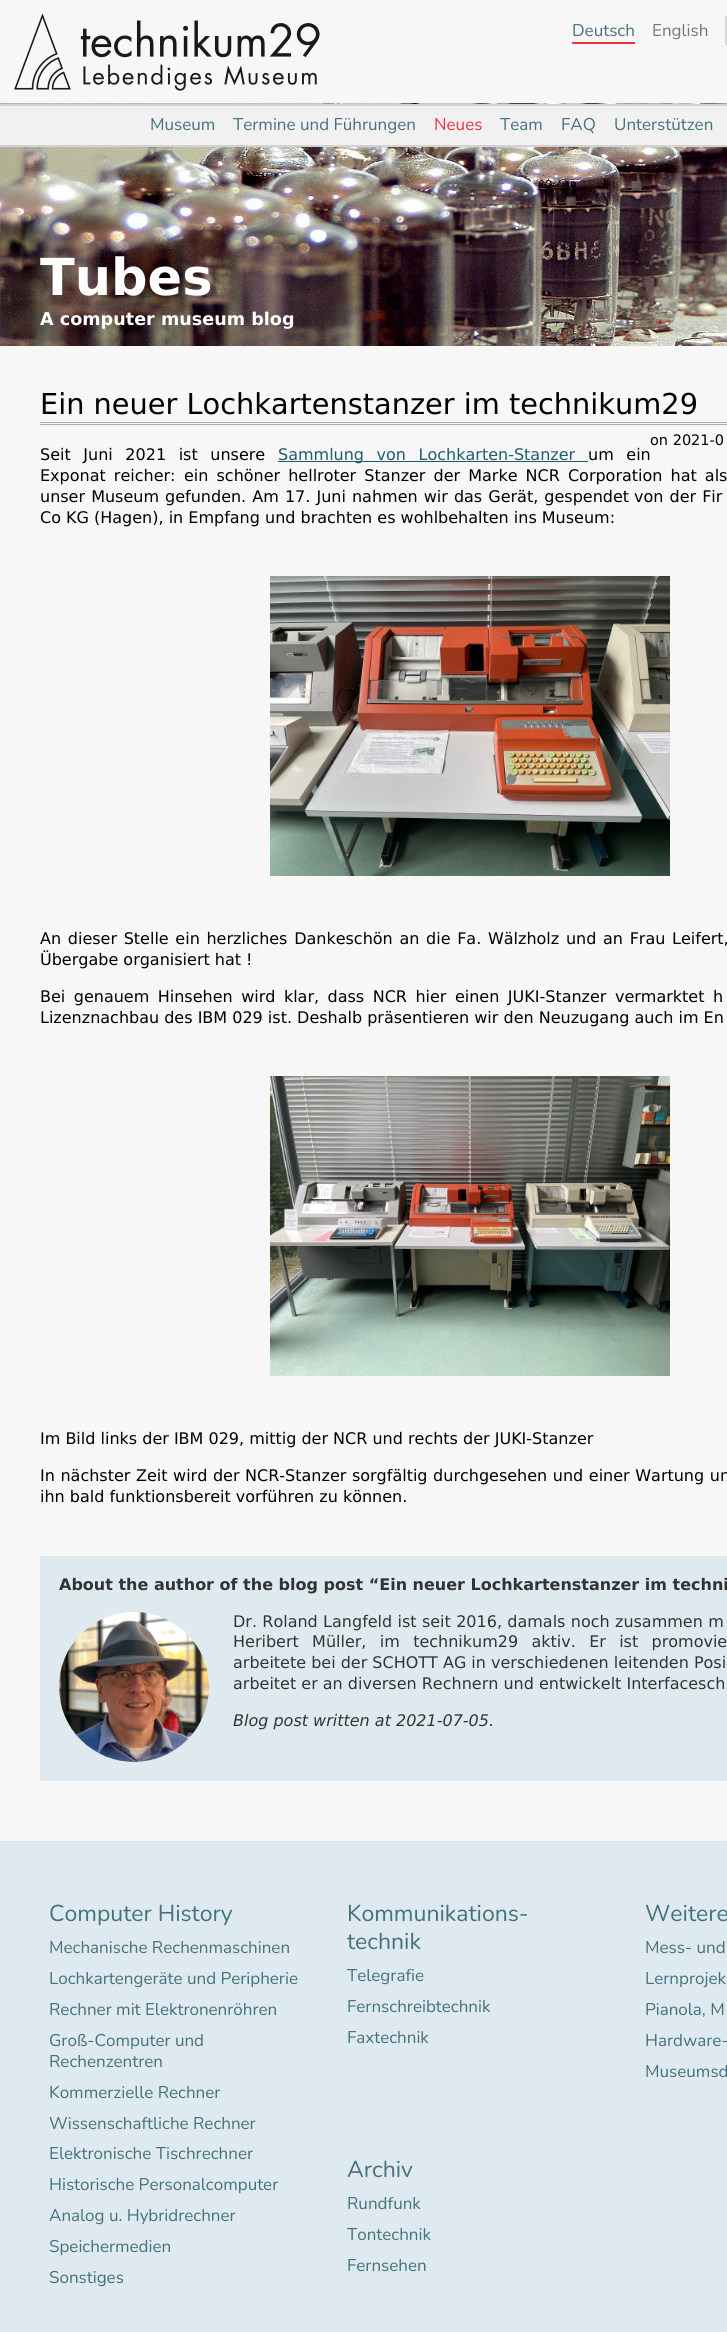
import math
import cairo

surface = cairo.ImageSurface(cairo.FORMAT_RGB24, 727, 2332)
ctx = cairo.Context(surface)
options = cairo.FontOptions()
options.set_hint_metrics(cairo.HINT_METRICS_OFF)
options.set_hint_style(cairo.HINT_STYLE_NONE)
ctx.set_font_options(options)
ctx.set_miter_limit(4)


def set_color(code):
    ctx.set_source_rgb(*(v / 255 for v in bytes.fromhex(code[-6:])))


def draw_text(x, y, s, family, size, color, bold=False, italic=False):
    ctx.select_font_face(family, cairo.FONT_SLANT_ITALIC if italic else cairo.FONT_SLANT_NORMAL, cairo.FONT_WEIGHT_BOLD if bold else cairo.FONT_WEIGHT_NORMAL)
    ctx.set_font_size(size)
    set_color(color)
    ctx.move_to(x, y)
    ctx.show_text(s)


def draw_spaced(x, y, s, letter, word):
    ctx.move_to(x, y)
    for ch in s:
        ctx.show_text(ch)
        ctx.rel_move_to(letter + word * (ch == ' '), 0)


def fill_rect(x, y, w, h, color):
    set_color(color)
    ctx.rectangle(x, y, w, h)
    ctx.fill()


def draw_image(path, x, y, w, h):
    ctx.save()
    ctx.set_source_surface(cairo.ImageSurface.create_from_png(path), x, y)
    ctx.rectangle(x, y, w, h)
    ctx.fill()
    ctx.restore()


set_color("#f7f7f7")
ctx.paint()
draw_image("assets/img1.png", 14, 13, 306, 78)
fill_rect(572, 42, 63, 2, "#ec3142")
draw_text(572, 36, "Deutsch", "Nunito", 17, "#45717d")
draw_text(652, 36, "English", "Nunito", 17, "#757575")
ctx.rectangle(726, 17, 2, 27)
set_color("#d8d8d8")
ctx.stroke()
draw_image("assets/img2.png", 0, 103, 727, 243)
fill_rect(0, 106, 727, 39, "#f1f1f1")
fill_rect(0, 104, 727, 2, "#d2d2d2")
fill_rect(0, 145, 727, 2, "#d2d2d2")
draw_text(150, 130, "Museum", "Nunito", 17, "#45717d")
draw_text(233, 130, "Termine und Führungen", "Nunito", 17, "#45717d")
draw_text(434, 130, "Neues", "Nunito", 17, "#eb3041")
draw_text(500, 130, "Team", "Nunito", 17, "#45717d")
draw_text(561, 130, "FAQ", "Nunito", 17, "#45717d")
draw_text(614, 130, "Unterstützen", "Nunito", 17, "#45717d")
draw_text(40, 295, "Tubes", "DejaVu Sans", 51, "#ffffff", bold=True)
draw_text(40, 325, "A computer museum blog", "DejaVu Sans", 17.6, "#ffffff", bold=True)
fill_rect(40, 422, 687, 1, "#aaaaaa")
fill_rect(40, 424, 687, 1, "#aaaaaa")
draw_text(40, 414, "Ein neuer Lochkartenstanzer im technikum29", "DejaVu Sans", 28.8, "#000000")
draw_text(650, 445, "on 2021-0", "DejaVu Sans", 14.5, "#000000")
ctx.set_font_size(16)
draw_spaced(40, 460, "Seit Juni 2021 ist unsere", 0, 7.5)
fill_rect(278, 461, 310, 1, "#205b6b")
draw_spaced(278, 460, "Sammlung von Lochkarten-Stanzer", 0, 7.5)
set_color("#000000")
draw_spaced(588, 460, "um ein", 0, 7.5)
draw_spaced(40, 481, "Exponat reicher:", 0, 3)
draw_spaced(184, 481, "ein schöner hellroter Stanzer der Marke NCR Corporation hat als", 0, 3)
draw_spaced(40, 502, "unser Museum gefunden. Am 17. Juni nahmen wir das Gerät, gespendet", 0, 1)
draw_spaced(634, 502, "von der Fir", 0, 1)
draw_text(40, 523, "Co KG (Hagen), in Empfang und brachten es wohlbehalten ins Museum:", "DejaVu Sans", 16, "#000000")
draw_image("assets/img3.png", 270, 576, 400, 300)
draw_spaced(40, 944, "An dieser Stelle ein herzliches Dankeschön an die Fa. Wälzholz und an Frau Leifert,", 0, 1.6)
draw_text(40, 965, "Übergabe organisiert hat !", "DejaVu Sans", 16, "#000000")
draw_spaced(40, 1002, "Bei genauem Hinsehen wird klar, dass NCR hier einen JUKI-Stanzer vermarktet h", 0, 3.4)
draw_text(40, 1023, "Lizenznachbau des IBM 029 ist. Deshalb präsentieren wir den Neuzugang auch im En", "DejaVu Sans", 16, "#000000")
draw_image("assets/img4.png", 270, 1076, 400, 300)
draw_text(40, 1444, "Im Bild links der IBM 029, mittig der NCR und rechts der JUKI-Stanzer", "DejaVu Sans", 16, "#000000")
draw_spaced(40, 1481, "In nächster Zeit wird der NCR-Stanzer sorgfältig durchgesehen und einer Wartung un", 0, 0.5)
draw_text(40, 1502, "ihn bald funktionsbereit vorführen zu können.", "DejaVu Sans", 16, "#000000")
fill_rect(40, 1556, 687, 225, "#dfeaf0")
draw_text(59, 1590, "About the author of the blog post “Ein neuer Lochkartenstanzer im techni", "DejaVu Sans", 16, "#333333", bold=True)
draw_image("assets/img5.png", 59, 1612, 150, 150)
ctx.select_font_face("DejaVu Sans")
draw_spaced(233, 1627, "Dr. Roland Langfeld ist seit 2016, damals noch zusammen m", 0, 0.25)
draw_spaced(233, 1647, "Heribert Müller, im technikum29 aktiv. Er ist promovie", 0, 8.25)
draw_text(233, 1668, "arbeitete bei der SCHOTT AG in verschiedenen leitenden Posi", "DejaVu Sans", 16, "#333333")
draw_text(233, 1689, "arbeitet er an diversen Rechnern und entwickelt Interfacesch", "DejaVu Sans", 16, "#333333")
draw_text(233, 1726, "Blog post written at 2021-07-05.", "DejaVu Sans", 16, "#333333", italic=True)
fill_rect(0, 1841, 727, 491, "#dfeaf0")
draw_text(49, 1921, "Computer History", "Nunito", 23, "#45717d")
draw_text(49, 1953, "Mechanische Rechenmaschinen", "Nunito", 17, "#45717d")
draw_text(49, 1984, "Lochkartengeräte und Peripherie", "Nunito", 17, "#45717d")
draw_text(49, 2015, "Rechner mit Elektronenröhren", "Nunito", 17, "#45717d")
draw_text(49, 2046, "Groß-Computer und", "Nunito", 17, "#45717d")
draw_text(49, 2067, "Rechenzentren", "Nunito", 17, "#45717d")
draw_text(49, 2098, "Kommerzielle Rechner", "Nunito", 17, "#45717d")
draw_text(49, 2129, "Wissenschaftliche Rechner", "Nunito", 17, "#45717d")
draw_text(49, 2159, "Elektronische Tischrechner", "Nunito", 17, "#45717d")
draw_text(49, 2190, "Historische Personalcomputer", "Nunito", 17, "#45717d")
draw_text(49, 2221, "Analog u. Hybridrechner", "Nunito", 17, "#45717d")
draw_text(49, 2252, "Speichermedien", "Nunito", 17, "#45717d")
draw_text(49, 2283, "Sonstiges", "Nunito", 17, "#45717d")
draw_text(347, 1921, "Kommunikations-", "Nunito", 23, "#45717d")
draw_text(347, 1949, "technik", "Nunito", 23, "#45717d")
draw_text(347, 1981, "Telegrafie", "Nunito", 17, "#45717d")
draw_text(347, 2012, "Fernschreibtechnik", "Nunito", 17, "#45717d")
draw_text(347, 2043, "Faxtechnik", "Nunito", 17, "#45717d")
draw_text(645, 1921, "Weitere", "Nunito", 23, "#45717d")
draw_text(645, 1953, "Mess- und", "Nunito", 17, "#45717d")
draw_text(645, 1984, "Lernprojek", "Nunito", 17, "#45717d")
draw_text(645, 2015, "Pianola, M", "Nunito", 17, "#45717d")
draw_text(645, 2046, "Hardware-", "Nunito", 17, "#45717d")
draw_text(645, 2077, "Museumsd", "Nunito", 17, "#45717d")
draw_text(347, 2177, "Archiv", "Nunito", 23, "#45717d")
draw_text(347, 2209, "Rundfunk", "Nunito", 17, "#45717d")
draw_text(347, 2240, "Tontechnik", "Nunito", 17, "#45717d")
draw_text(347, 2271, "Fernsehen", "Nunito", 17, "#45717d")
surface.write_to_png("output.png")
